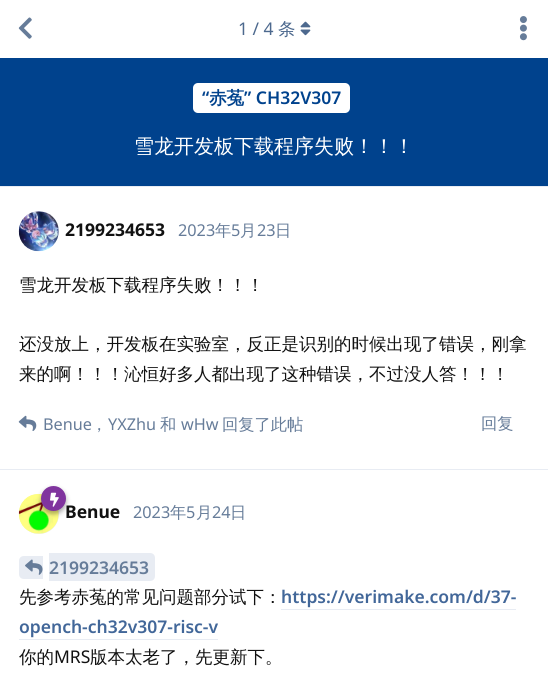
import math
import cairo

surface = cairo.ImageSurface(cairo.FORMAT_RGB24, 548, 684)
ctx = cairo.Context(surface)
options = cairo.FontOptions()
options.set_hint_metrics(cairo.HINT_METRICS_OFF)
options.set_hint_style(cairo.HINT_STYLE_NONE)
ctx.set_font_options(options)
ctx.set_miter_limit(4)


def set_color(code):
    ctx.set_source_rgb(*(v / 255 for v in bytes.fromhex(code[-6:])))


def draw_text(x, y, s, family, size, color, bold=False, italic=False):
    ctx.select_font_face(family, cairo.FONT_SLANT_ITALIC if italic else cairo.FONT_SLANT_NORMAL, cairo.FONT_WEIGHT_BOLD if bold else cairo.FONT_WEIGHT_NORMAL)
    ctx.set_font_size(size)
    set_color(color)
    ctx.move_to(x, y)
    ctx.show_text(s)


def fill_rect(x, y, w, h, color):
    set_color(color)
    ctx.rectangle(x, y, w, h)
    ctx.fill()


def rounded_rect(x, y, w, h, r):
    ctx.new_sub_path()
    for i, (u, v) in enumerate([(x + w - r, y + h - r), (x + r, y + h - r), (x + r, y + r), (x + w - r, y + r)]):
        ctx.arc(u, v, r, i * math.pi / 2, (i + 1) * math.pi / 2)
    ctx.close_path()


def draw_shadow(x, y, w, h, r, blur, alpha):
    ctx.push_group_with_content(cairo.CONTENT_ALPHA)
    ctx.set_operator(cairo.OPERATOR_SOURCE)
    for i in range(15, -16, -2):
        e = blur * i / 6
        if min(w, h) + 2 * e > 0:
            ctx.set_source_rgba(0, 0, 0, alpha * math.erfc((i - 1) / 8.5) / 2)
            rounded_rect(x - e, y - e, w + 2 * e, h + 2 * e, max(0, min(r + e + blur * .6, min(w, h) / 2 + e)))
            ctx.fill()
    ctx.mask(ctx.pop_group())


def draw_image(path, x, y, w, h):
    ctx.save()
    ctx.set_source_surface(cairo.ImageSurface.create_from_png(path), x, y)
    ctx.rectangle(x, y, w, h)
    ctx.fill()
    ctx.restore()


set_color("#ffffff")
ctx.paint()
draw_image("assets/img1.png", 18, 17, 14, 22)
fill_rect(0, 186, 548, 1, "#e8ecf3")
draw_text(238, 35, "1 / 4", "Noto Sans", 17.5, "#4d698e")
draw_text(278, 35, "条", "WenQuanYi Zen Hei Medium", 17.5, "#4d698e")
draw_image("assets/img2.png", 300, 21, 11, 15)
draw_image("assets/img3.png", 519, 16, 8, 25)
fill_rect(0, 469, 548, 1, "#e8ecf3")
ctx.arc(39, 231, 20, 0, 2 * math.pi)
ctx.fill()
draw_image("assets/img4.png", 18, 211, 41, 41)
draw_text(65, 236, "2199234653", "Noto Sans", 17.5, "#111111", bold=True)
draw_text(178, 236, "2023", "Noto Sans", 16.25, "#667c99")
draw_text(215, 236, "年", "WenQuanYi Zen Hei Medium", 16.25, "#667c99")
draw_text(231, 236, "5", "Noto Sans", 16.25, "#667c99")
draw_text(240, 236, "月", "WenQuanYi Zen Hei Medium", 16.25, "#667c99")
draw_text(257, 236, "23", "Noto Sans", 16.25, "#667c99")
draw_text(275, 236, "日", "WenQuanYi Zen Hei Medium", 16.25, "#667c99")
draw_text(19, 291, "雪龙开发板下载程序失败！！！", "WenQuanYi Zen Hei Medium", 17.5, "#111111")
draw_text(19, 350, "还没放上，开发板在实验室，反正是识别的时候出现了错误，刚拿", "WenQuanYi Zen Hei Medium", 17.5, "#111111")
draw_text(19, 380, "来的啊！！！沁恒好多人都出现了这种错误，不过没人答！！！", "WenQuanYi Zen Hei Medium", 17.5, "#111111")
draw_image("assets/img5.png", 18, 415, 19, 16)
draw_text(43, 430, "Benue", "Noto Sans", 16.25, "#667c99")
draw_text(108, 430, "YXZhu", "Noto Sans", 16.25, "#667c99")
draw_text(160, 430, "和", "WenQuanYi Zen Hei Medium", 16.25, "#667c99")
draw_text(181, 430, "wHw", "Noto Sans", 16.25, "#667c99")
draw_text(222, 430, "回复了此帖", "WenQuanYi Zen Hei Medium", 16.25, "#667c99")
draw_text(91, 430, "，", "WenQuanYi Zen Hei Medium", 16.25, "#667c99")
draw_text(481, 429, "回复", "WenQuanYi Zen Hei Medium", 16.25, "#667c99")
set_color("#e8ecf3")
ctx.new_path()
ctx.arc(39, 514, 20, 0, 2 * math.pi)
ctx.fill()
draw_image("assets/img7.png", 18, 493, 41, 41)
set_color("#000000")
draw_shadow(41, 489, 25, 25, 12.5, 2.5, 0.35)
set_color("#80349e")
ctx.arc(53.5, 498.5, 12.5, 0, 2 * math.pi)
ctx.fill()
draw_image("assets/img6.png", 50, 492, 9, 15)
draw_text(65, 518, "Benue", "Noto Sans", 17.5, "#111111", bold=True)
draw_text(133, 518, "2023", "Noto Sans", 16.25, "#667c99")
draw_text(170, 518, "年", "WenQuanYi Zen Hei Medium", 16.25, "#667c99")
draw_text(186, 518, "5", "Noto Sans", 16.25, "#667c99")
draw_text(196, 518, "月", "WenQuanYi Zen Hei Medium", 16.25, "#667c99")
draw_text(212, 518, "24", "Noto Sans", 16.25, "#667c99")
draw_text(230, 518, "日", "WenQuanYi Zen Hei Medium", 16.25, "#667c99")
set_color("#e8ecf3")
ctx.new_path()
ctx.move_to(24, 556)
ctx.line_to(43, 556)
ctx.line_to(43, 579)
ctx.line_to(24, 579)
ctx.curve_to(21, 579, 19, 577, 19, 574)
ctx.line_to(19, 561)
ctx.curve_to(19, 558, 21, 556, 24, 556)
ctx.close_path()
ctx.fill()
ctx.new_path()
ctx.move_to(49, 553)
ctx.line_to(150, 553)
ctx.curve_to(153, 553, 155, 555, 155, 558)
ctx.line_to(155, 576)
ctx.curve_to(155, 579, 153, 581, 150, 581)
ctx.line_to(49, 581)
ctx.close_path()
ctx.fill()
draw_image("assets/img8.png", 25, 559, 18, 16)
draw_text(49, 574, "2199234653", "Noto Sans SemiBold", 17.5, "#667c99")
draw_text(19, 603, "先参考赤菟的常见问题部分试下：", "WenQuanYi Zen Hei Medium", 17.5, "#111111")
draw_text(281, 603, "https://verimake.com/d/37-", "Noto Sans SemiBold", 17.5, "#426799")
fill_rect(281, 609, 235, 1, "#e8ecf3")
draw_text(19, 633, "opench-ch32v307-risc-v", "Noto Sans SemiBold", 17.5, "#426799")
fill_rect(19, 639, 199, 1, "#e8ecf3")
draw_text(19, 663, "你的", "WenQuanYi Zen Hei Medium", 17.5, "#111111")
draw_text(54, 663, "MRS", "Noto Sans", 17.5, "#111111")
draw_text(90, 663, "版本太老了，先更新下。", "WenQuanYi Zen Hei Medium", 17.5, "#111111")
fill_rect(0, 58, 548, 128, "#00428d")
set_color("#ffffff")
rounded_rect(193, 83, 157, 30, 5)
ctx.fill()
draw_text(202, 104, "“", "Noto Sans SemiBold", 17.5, "#00428d")
draw_text(209, 104, "赤菟", "WenQuanYi Zen Hei", 17.5, "#00428d", bold=True)
draw_text(244, 104, "” CH32V307", "Noto Sans SemiBold", 17.5, "#00428d")
draw_text(134, 153, "雪龙开发板下载程序失败！！！", "WenQuanYi Zen Hei Medium", 20, "#ffffff")
surface.write_to_png("output.png")
